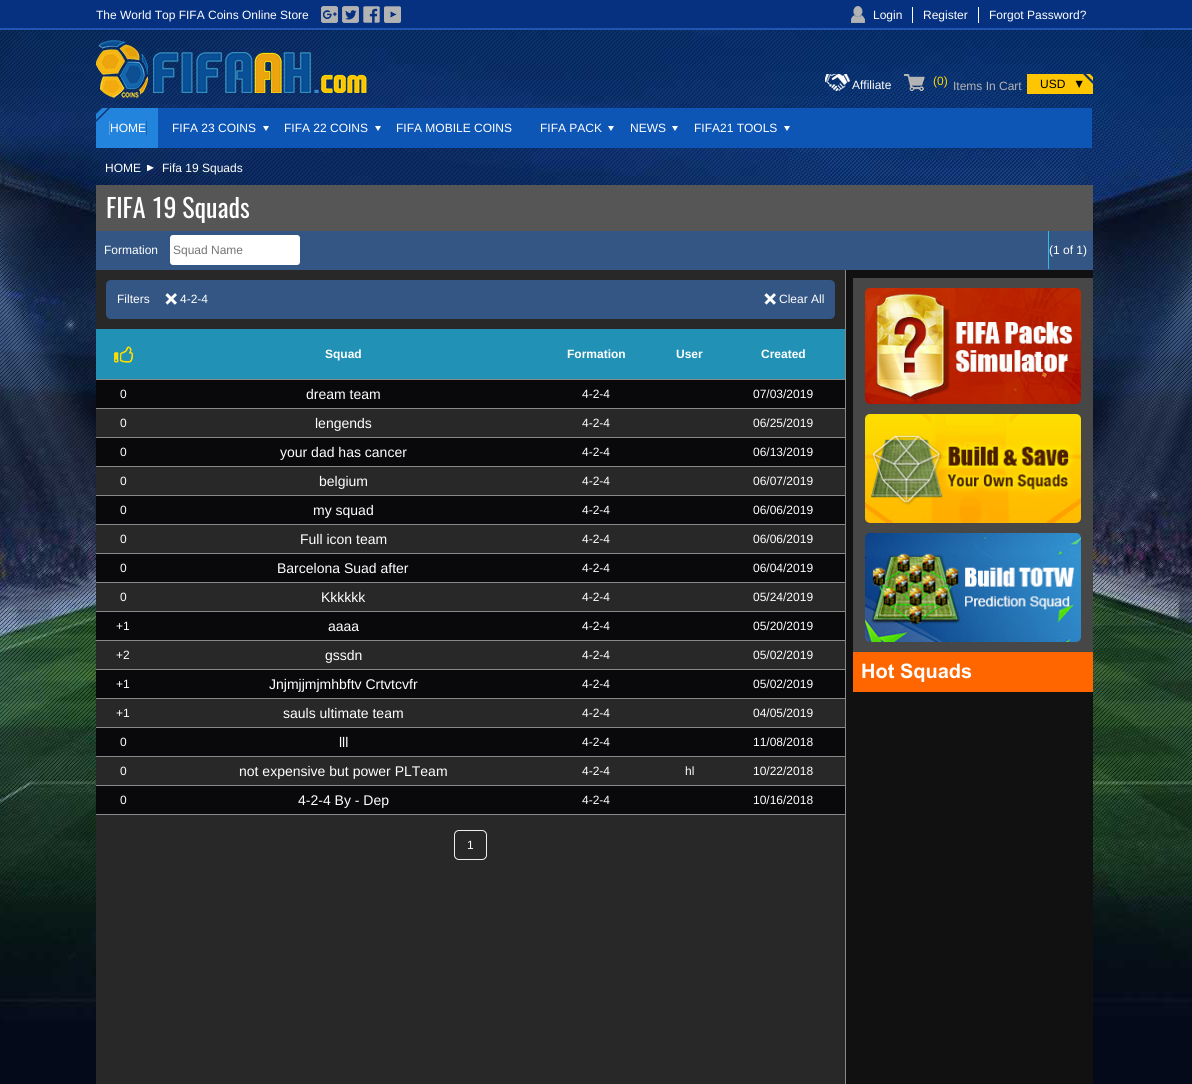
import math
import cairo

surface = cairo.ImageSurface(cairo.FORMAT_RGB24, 1192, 1084)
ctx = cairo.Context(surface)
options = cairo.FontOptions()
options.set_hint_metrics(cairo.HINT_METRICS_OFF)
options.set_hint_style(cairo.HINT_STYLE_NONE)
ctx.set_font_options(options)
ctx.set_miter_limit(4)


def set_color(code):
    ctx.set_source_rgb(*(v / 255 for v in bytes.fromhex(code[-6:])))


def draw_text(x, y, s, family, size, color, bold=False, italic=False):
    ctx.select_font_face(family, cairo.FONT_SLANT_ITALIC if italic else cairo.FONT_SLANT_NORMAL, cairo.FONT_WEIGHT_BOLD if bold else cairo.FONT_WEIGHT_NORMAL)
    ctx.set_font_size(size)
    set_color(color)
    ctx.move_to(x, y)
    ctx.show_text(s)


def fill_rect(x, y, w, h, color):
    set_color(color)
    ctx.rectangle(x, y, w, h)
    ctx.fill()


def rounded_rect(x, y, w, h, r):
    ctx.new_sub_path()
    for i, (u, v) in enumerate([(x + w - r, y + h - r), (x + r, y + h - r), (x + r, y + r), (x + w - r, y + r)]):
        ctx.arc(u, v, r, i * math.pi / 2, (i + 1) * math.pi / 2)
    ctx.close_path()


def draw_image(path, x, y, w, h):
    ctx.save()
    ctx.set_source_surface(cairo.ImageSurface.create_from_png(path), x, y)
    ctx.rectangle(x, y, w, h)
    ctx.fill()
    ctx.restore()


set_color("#ffffff")
ctx.paint()
draw_image("assets/img1.png", 0, 30, 1192, 1054)
fill_rect(0, 0, 1192, 28, "#063180")
fill_rect(0, 28, 1192, 2, "#2255b2")
draw_text(96, 19, "The World Top FIFA Coins Online Store", "Liberation Sans", 12, "#ffffff")
draw_image("assets/img2.png", 321, 6, 17, 17)
draw_image("assets/img3.png", 342, 6, 17, 17)
draw_image("assets/img4.png", 363, 6, 17, 17)
draw_image("assets/img5.png", 384, 6, 17, 17)
draw_image("assets/img6.png", 851, 6, 14, 17)
fill_rect(912, 7, 1, 16, "#ffffff")
draw_text(873, 19, "Login", "Liberation Sans", 12, "#ffffff")
fill_rect(978, 7, 1, 16, "#ffffff")
draw_text(923, 19, "Register", "Liberation Sans", 12, "#ffffff")
draw_text(989, 19, "Forgot Password?", "Liberation Sans", 12, "#ffffff")
draw_image("assets/img7.png", 96, 40, 271, 58)
draw_image("assets/img8.png", 825, 74, 25, 17)
draw_text(852, 89, "Affiliate", "Liberation Sans", 12, "#ffffff")
draw_image("assets/img9.png", 904, 74, 21, 17)
draw_text(933, 85, "(0)", "Liberation Sans", 12, "#fed701")
draw_text(953, 90, "Items In Cart", "Liberation Sans", 12, "#b3b3b3")
draw_image("assets/img10.png", 1027, 74, 66, 20)
draw_text(1040, 88, "USD", "Liberation Sans", 12, "#000000")
draw_image("assets/img11.png", 96, 108, 62, 40)
draw_text(110, 132, "HOME", "Liberation Sans", 12, "#ffffff")
fill_rect(146, 121, 1, 14, "#1a63a6")
fill_rect(109, 121, 1, 14, "#59a3e6")
fill_rect(158, 108, 934, 40, "#0d56b6")
draw_text(172, 132, "FIFA 23 COINS", "Liberation Sans", 12, "#ffffff")
ctx.new_path()
ctx.move_to(263, 126)
ctx.line_to(269, 126)
ctx.line_to(266, 131)
ctx.close_path()
ctx.fill()
draw_text(284, 132, "FIFA 22 COINS", "Liberation Sans", 12, "#ffffff")
ctx.new_path()
ctx.move_to(375, 126)
ctx.line_to(381, 126)
ctx.line_to(378, 131)
ctx.close_path()
ctx.fill()
draw_text(396, 132, "FIFA MOBILE COINS", "Liberation Sans", 12, "#ffffff")
draw_text(540, 132, "FIFA PACK", "Liberation Sans", 12, "#ffffff")
ctx.new_path()
ctx.move_to(608, 126)
ctx.line_to(614, 126)
ctx.line_to(611, 131)
ctx.close_path()
ctx.fill()
draw_text(630, 132, "NEWS", "Liberation Sans", 12, "#ffffff")
ctx.new_path()
ctx.move_to(672, 126)
ctx.line_to(678, 126)
ctx.line_to(675, 131)
ctx.close_path()
ctx.fill()
draw_text(694, 132, "FIFA21 TOOLS", "Liberation Sans", 12, "#ffffff")
ctx.new_path()
ctx.move_to(784, 126)
ctx.line_to(790, 126)
ctx.line_to(787, 131)
ctx.close_path()
ctx.fill()
draw_image("assets/img12.png", 147, 165, 7, 6)
draw_text(105, 172, "HOME", "Liberation Sans", 12, "#ffffff")
draw_text(162, 172, "Fifa 19 Squads", "Liberation Sans", 12, "#ffffff")
fill_rect(96, 185, 997, 46, "#565656")
draw_text(106, 218, "FIFA 19 Squads", "Oswald", 26, "#ffffff")
fill_rect(96, 231, 997, 39, "#335684")
draw_text(104, 254, "Formation", "Liberation Sans", 12, "#ffffff")
rounded_rect(170, 235, 130, 30, 3)
ctx.fill()
draw_text(173, 254, "Squad Name", "Liberation Sans", 12, "#757575")
fill_rect(1048, 231, 1, 38, "#30bae6")
draw_text(1049, 254, "(1 of 1)", "Liberation Sans", 12, "#ffffff")
fill_rect(846, 270, 247, 814, "#111111")
fill_rect(96, 270, 749, 814, "#292828")
fill_rect(845, 270, 1, 814, "#8a8989")
set_color("#335684")
rounded_rect(106, 280, 729, 39, 5)
ctx.fill()
draw_text(117, 303, "Filters", "Liberation Sans", 12, "#ffffff")
draw_image("assets/img13.png", 165, 293, 12, 12)
draw_text(180, 303, "4-2-4", "Liberation Sans", 12, "#ffffff")
draw_image("assets/img13.png", 764, 293, 12, 12)
draw_text(779, 303, "Clear All", "Liberation Sans", 12, "#ffffff")
fill_rect(96, 329, 749, 50, "#2191b5")
draw_image("assets/img14.png", 114, 346, 19, 17)
draw_text(325, 358, "Squad", "Liberation Sans", 12, "#ffffff", bold=True)
draw_text(567, 358, "Formation", "Liberation Sans", 12, "#ffffff", bold=True)
draw_text(676, 358, "User", "Liberation Sans", 12, "#ffffff", bold=True)
fill_rect(96, 379, 750, 1, "#8a8989")
draw_text(761, 358, "Created", "Liberation Sans", 12, "#ffffff", bold=True)
fill_rect(96, 380, 749, 28, "#09090b")
draw_text(120, 398, "0", "Liberation Sans", 12, "#ffffff")
draw_text(306, 399, "dream team", "Liberation Sans", 14, "#ffffff")
draw_text(582, 398, "4-2-4", "Liberation Sans", 12, "#ffffff")
fill_rect(96, 408, 750, 1, "#8a8989")
draw_text(753, 398, "07/03/2019", "Liberation Sans", 12, "#ffffff")
draw_text(120, 427, "0", "Liberation Sans", 12, "#ffffff")
draw_text(315, 428, "lengends", "Liberation Sans", 14, "#ffffff")
draw_text(582, 427, "4-2-4", "Liberation Sans", 12, "#ffffff")
fill_rect(96, 437, 750, 1, "#8a8989")
draw_text(753, 427, "06/25/2019", "Liberation Sans", 12, "#ffffff")
fill_rect(96, 438, 749, 28, "#09090b")
draw_text(120, 456, "0", "Liberation Sans", 12, "#ffffff")
draw_text(280, 457, "your dad has cancer", "Liberation Sans", 14, "#ffffff")
draw_text(582, 456, "4-2-4", "Liberation Sans", 12, "#ffffff")
fill_rect(96, 466, 750, 1, "#8a8989")
draw_text(753, 456, "06/13/2019", "Liberation Sans", 12, "#ffffff")
draw_text(120, 485, "0", "Liberation Sans", 12, "#ffffff")
draw_text(319, 486, "belgium", "Liberation Sans", 14, "#ffffff")
draw_text(582, 485, "4-2-4", "Liberation Sans", 12, "#ffffff")
fill_rect(96, 495, 750, 1, "#8a8989")
draw_text(753, 485, "06/07/2019", "Liberation Sans", 12, "#ffffff")
fill_rect(96, 496, 749, 28, "#09090b")
draw_text(120, 514, "0", "Liberation Sans", 12, "#ffffff")
draw_text(313, 515, "my squad", "Liberation Sans", 14, "#ffffff")
draw_text(582, 514, "4-2-4", "Liberation Sans", 12, "#ffffff")
fill_rect(96, 524, 750, 1, "#8a8989")
draw_text(753, 514, "06/06/2019", "Liberation Sans", 12, "#ffffff")
draw_text(120, 543, "0", "Liberation Sans", 12, "#ffffff")
draw_text(300, 544, "Full icon team", "Liberation Sans", 14, "#ffffff")
draw_text(582, 543, "4-2-4", "Liberation Sans", 12, "#ffffff")
fill_rect(96, 553, 750, 1, "#8a8989")
draw_text(753, 543, "06/06/2019", "Liberation Sans", 12, "#ffffff")
fill_rect(96, 554, 749, 28, "#09090b")
draw_text(120, 572, "0", "Liberation Sans", 12, "#ffffff")
draw_text(277, 573, "Barcelona Suad after", "Liberation Sans", 14, "#ffffff")
draw_text(582, 572, "4-2-4", "Liberation Sans", 12, "#ffffff")
fill_rect(96, 582, 750, 1, "#8a8989")
draw_text(753, 572, "06/04/2019", "Liberation Sans", 12, "#ffffff")
draw_text(120, 601, "0", "Liberation Sans", 12, "#ffffff")
draw_text(321, 602, "Kkkkkk", "Liberation Sans", 14, "#ffffff")
draw_text(582, 601, "4-2-4", "Liberation Sans", 12, "#ffffff")
fill_rect(96, 611, 750, 1, "#8a8989")
draw_text(753, 601, "05/24/2019", "Liberation Sans", 12, "#ffffff")
fill_rect(96, 612, 749, 28, "#09090b")
draw_text(116, 630, "+1", "Liberation Sans", 12, "#ffffff")
draw_text(328, 631, "aaaa", "Liberation Sans", 14, "#ffffff")
draw_text(582, 630, "4-2-4", "Liberation Sans", 12, "#ffffff")
fill_rect(96, 640, 750, 1, "#8a8989")
draw_text(753, 630, "05/20/2019", "Liberation Sans", 12, "#ffffff")
draw_text(116, 659, "+2", "Liberation Sans", 12, "#ffffff")
draw_text(325, 660, "gssdn", "Liberation Sans", 14, "#ffffff")
draw_text(582, 659, "4-2-4", "Liberation Sans", 12, "#ffffff")
fill_rect(96, 669, 750, 1, "#8a8989")
draw_text(753, 659, "05/02/2019", "Liberation Sans", 12, "#ffffff")
fill_rect(96, 670, 749, 28, "#09090b")
draw_text(116, 688, "+1", "Liberation Sans", 12, "#ffffff")
draw_text(269, 689, "Jnjmjjmjmhbftv Crtvtcvfr", "Liberation Sans", 14, "#ffffff")
draw_text(582, 688, "4-2-4", "Liberation Sans", 12, "#ffffff")
fill_rect(96, 698, 750, 1, "#8a8989")
draw_text(753, 688, "05/02/2019", "Liberation Sans", 12, "#ffffff")
draw_text(116, 717, "+1", "Liberation Sans", 12, "#ffffff")
draw_text(283, 718, "sauls ultimate team", "Liberation Sans", 14, "#ffffff")
draw_text(582, 717, "4-2-4", "Liberation Sans", 12, "#ffffff")
fill_rect(96, 727, 750, 1, "#8a8989")
draw_text(753, 717, "04/05/2019", "Liberation Sans", 12, "#ffffff")
fill_rect(96, 728, 749, 28, "#09090b")
draw_text(120, 746, "0", "Liberation Sans", 12, "#ffffff")
draw_text(339, 747, "lll", "Liberation Sans", 14, "#ffffff")
draw_text(582, 746, "4-2-4", "Liberation Sans", 12, "#ffffff")
fill_rect(96, 756, 750, 1, "#8a8989")
draw_text(753, 746, "11/08/2018", "Liberation Sans", 12, "#ffffff")
draw_text(120, 775, "0", "Liberation Sans", 12, "#ffffff")
draw_text(239, 776, "not expensive but power PLTeam", "Liberation Sans", 14, "#ffffff")
draw_text(582, 775, "4-2-4", "Liberation Sans", 12, "#ffffff")
draw_text(685, 775, "hl", "Liberation Sans", 12, "#ffffff")
fill_rect(96, 785, 750, 1, "#8a8989")
draw_text(753, 775, "10/22/2018", "Liberation Sans", 12, "#ffffff")
fill_rect(96, 786, 749, 28, "#09090b")
draw_text(120, 804, "0", "Liberation Sans", 12, "#ffffff")
draw_text(298, 805, "4-2-4 By - Dep", "Liberation Sans", 14, "#ffffff")
draw_text(582, 804, "4-2-4", "Liberation Sans", 12, "#ffffff")
fill_rect(96, 814, 750, 1, "#8a8989")
draw_text(753, 804, "10/16/2018", "Liberation Sans", 12, "#ffffff")
rounded_rect(454.5, 830.5, 32, 29, 4.5)
set_color("#eeeeee")
ctx.set_line_width(1)
ctx.stroke()
draw_text(467, 849, "1", "Liberation Sans", 12, "#ffffff")
fill_rect(853, 278, 240, 374, "#474747")
draw_image("assets/img15.png", 865, 288, 216, 116)
draw_image("assets/img16.png", 865, 414, 216, 109)
draw_image("assets/img17.png", 865, 533, 216, 109)
fill_rect(853, 652, 240, 40, "#ff6600")
draw_text(861, 678, "Hot Squads", "Arial", 20, "#ffffff", bold=True)
surface.write_to_png("output.png")
